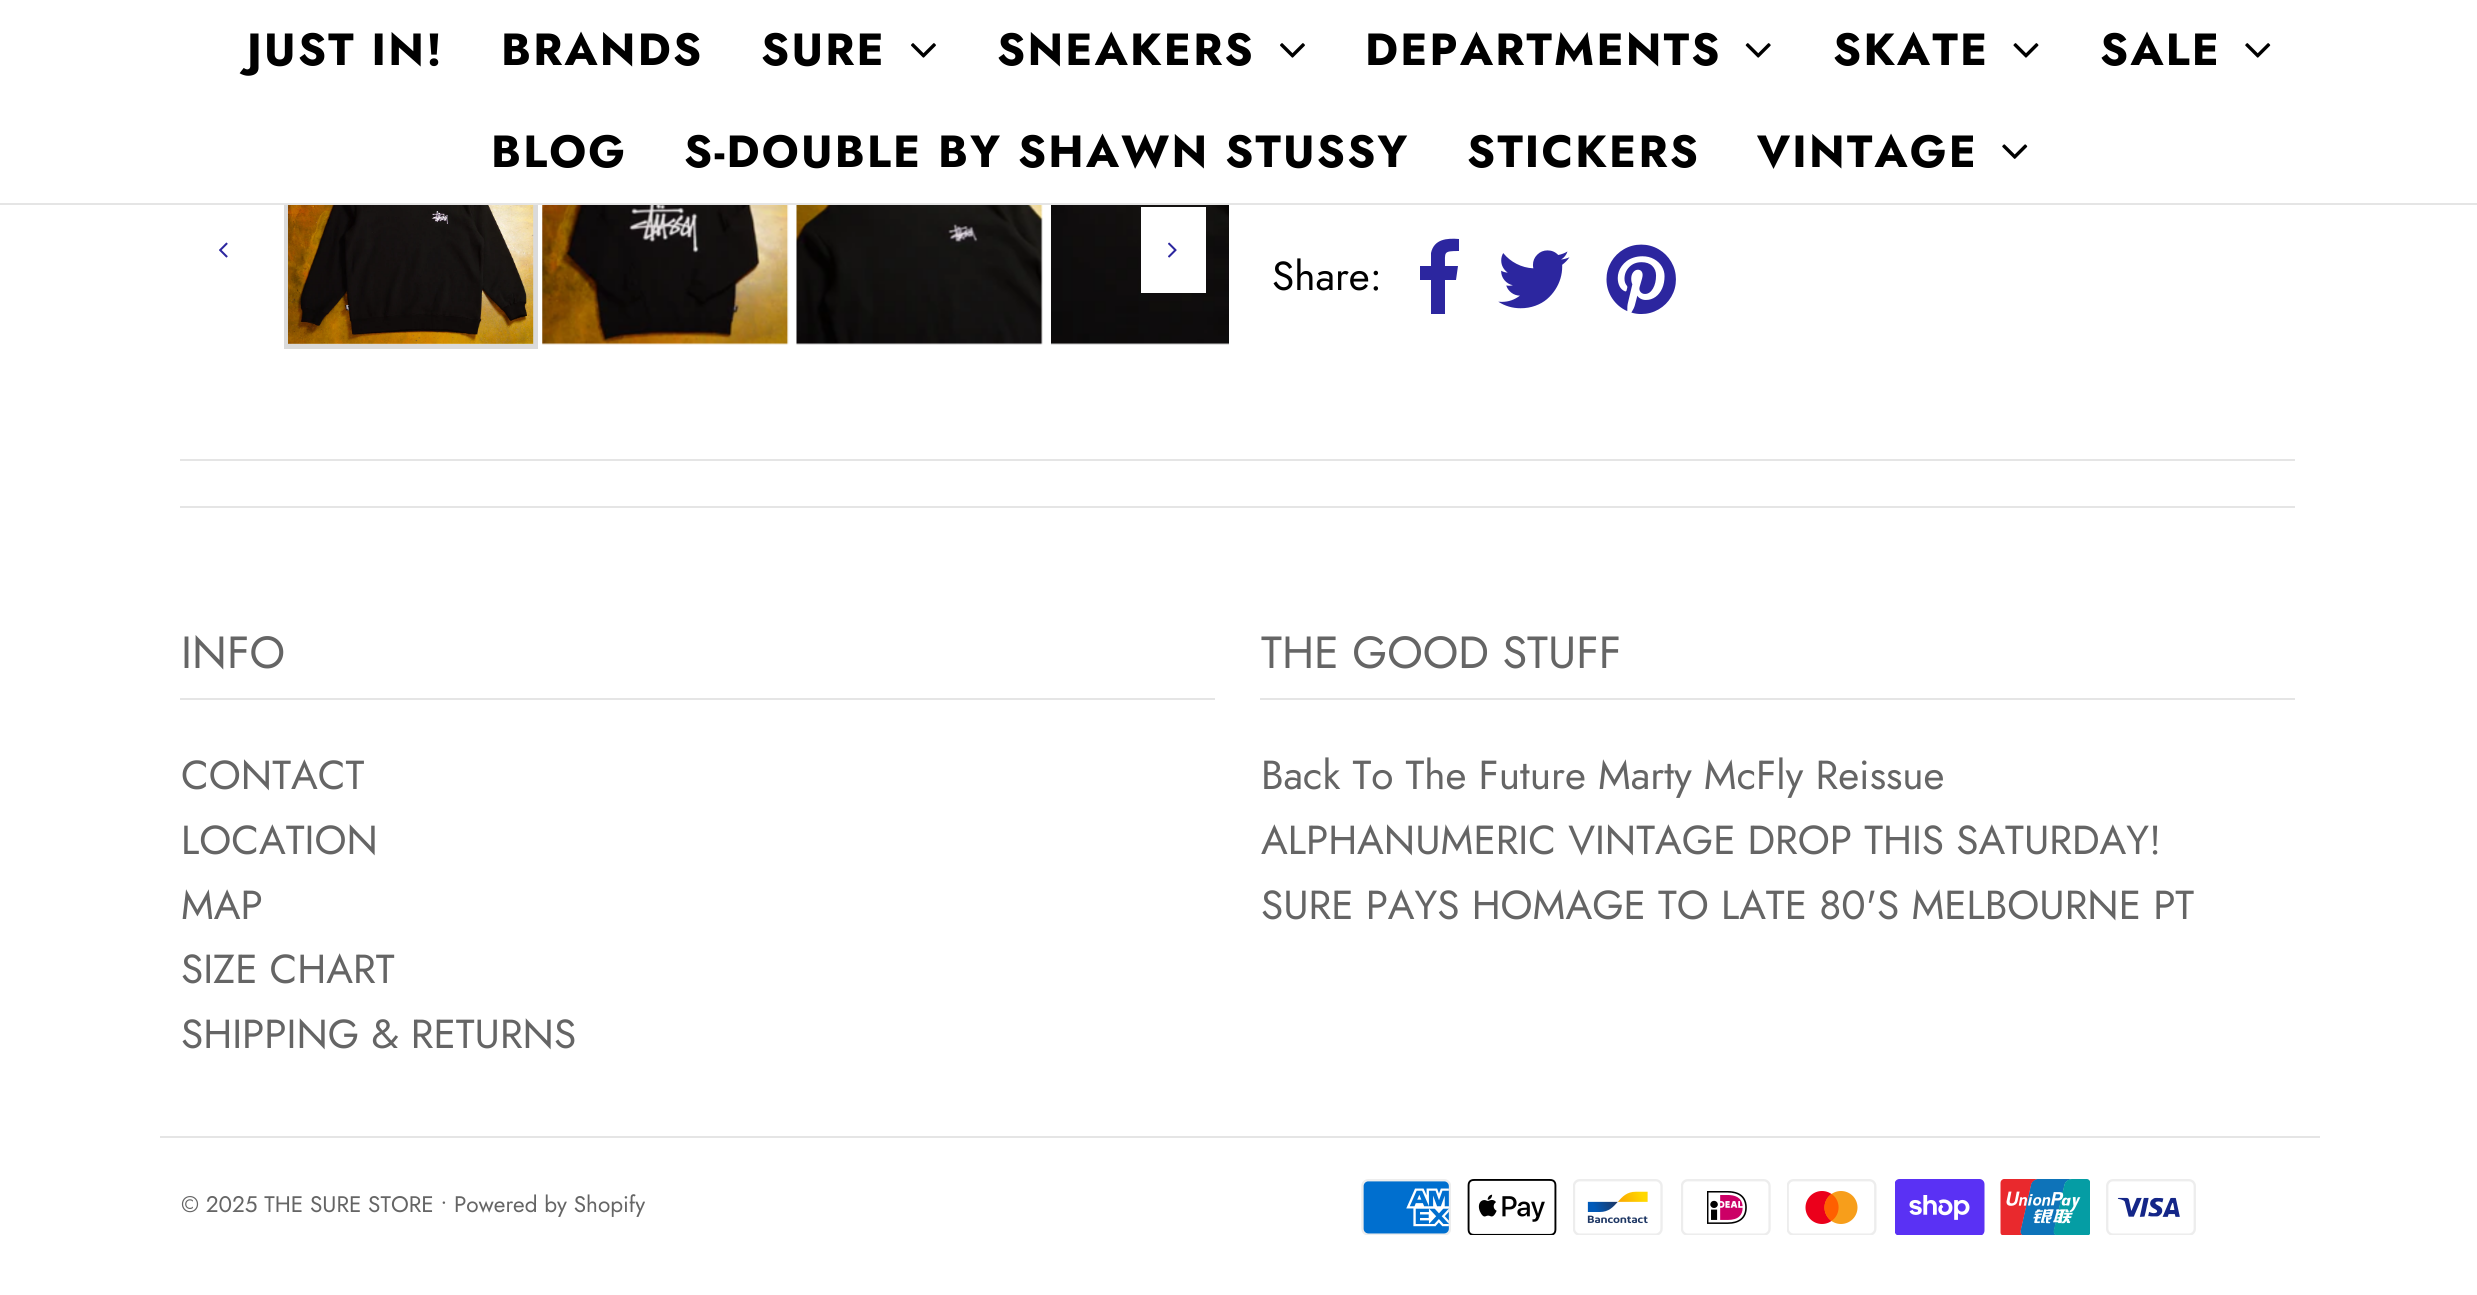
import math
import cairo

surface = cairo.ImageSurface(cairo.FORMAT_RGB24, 2477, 1295)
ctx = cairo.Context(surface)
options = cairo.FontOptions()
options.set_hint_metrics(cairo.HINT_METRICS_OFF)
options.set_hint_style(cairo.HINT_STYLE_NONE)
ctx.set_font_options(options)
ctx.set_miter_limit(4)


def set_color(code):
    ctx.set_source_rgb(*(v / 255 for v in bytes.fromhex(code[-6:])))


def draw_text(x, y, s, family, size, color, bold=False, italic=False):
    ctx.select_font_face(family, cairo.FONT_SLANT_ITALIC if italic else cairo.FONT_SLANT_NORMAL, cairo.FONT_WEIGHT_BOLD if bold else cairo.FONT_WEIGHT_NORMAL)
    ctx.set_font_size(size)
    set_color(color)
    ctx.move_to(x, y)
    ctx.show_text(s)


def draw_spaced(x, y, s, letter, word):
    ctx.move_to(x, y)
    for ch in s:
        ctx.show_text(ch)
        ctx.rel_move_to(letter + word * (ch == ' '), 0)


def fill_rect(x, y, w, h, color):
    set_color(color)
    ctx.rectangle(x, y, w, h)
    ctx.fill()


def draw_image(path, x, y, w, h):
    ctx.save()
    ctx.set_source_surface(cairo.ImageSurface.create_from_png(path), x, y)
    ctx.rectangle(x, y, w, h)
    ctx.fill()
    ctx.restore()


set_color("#ffffff")
ctx.paint()
ctx.rectangle(286.5, 157.5, 249, 189)
set_color("#dadada")
ctx.set_line_width(5)
ctx.stroke()
fill_rect(284, 155, 254, 48, "#ffffff")
fill_rect(0, 203, 2477, 2, "#e5e5e5")
ctx.select_font_face("Jost", cairo.FONT_SLANT_NORMAL, cairo.FONT_WEIGHT_BOLD)
ctx.set_font_size(45)
set_color("#000000")
draw_spaced(247, 65, "JUST IN!", 2.25, 0)
draw_spaced(501, 65, "BRANDS", 2.25, 0)
draw_spaced(761, 65, "SURE", 2.25, 0)
draw_image("assets/img1.png", 911, 43, 25, 15)
draw_spaced(997, 65, "SNEAKERS", 2.25, 0)
draw_image("assets/img1.png", 1280, 43, 25, 15)
draw_spaced(1365, 65, "DEPARTMENTS", 2.25, 0)
draw_image("assets/img2.png", 1745, 43, 26, 15)
draw_spaced(1833, 65, "SKATE", 2.25, 0)
draw_image("assets/img3.png", 2013, 43, 26, 15)
draw_spaced(2100, 65, "SALE", 2.25, 0)
draw_image("assets/img4.png", 2245, 43, 26, 15)
draw_spaced(491, 167, "BLOG", 2.25, 0)
draw_spaced(684, 167, "S-DOUBLE BY SHAWN STUSSY", 2.25, 0)
draw_spaced(1467, 167, "STICKERS", 2.25, 0)
draw_spaced(1757, 167, "VINTAGE", 2.25, 0)
draw_image("assets/img5.png", 2002, 144, 26, 15)
draw_image("assets/img6.png", 288, 205, 246, 139)
draw_image("assets/img7.png", 542, 205, 247, 140)
draw_image("assets/img8.png", 796, 205, 247, 140)
draw_image("assets/img9.png", 1051, 205, 178, 140)
draw_image("assets/img10.png", 219, 242, 9, 16)
fill_rect(1141, 207, 65, 86, "#ffffff")
draw_image("assets/img11.png", 1168, 242, 9, 16)
draw_text(1272, 290, "Share:", "Jost", 40.5, "#000000")
set_color("#2c269f")
ctx.new_path()
ctx.move_to(1459, 239)
ctx.line_to(1459, 251)
ctx.curve_to(1443, 251, 1445, 252, 1445, 266)
ctx.line_to(1458, 266)
ctx.line_to(1456, 280)
ctx.line_to(1445, 280)
ctx.line_to(1445, 314)
ctx.line_to(1431, 314)
ctx.line_to(1431, 280)
ctx.line_to(1420, 280)
ctx.line_to(1420, 266)
ctx.line_to(1431, 266)
ctx.line_to(1431, 253)
ctx.curve_to(1434, 239, 1447, 238, 1459, 239)
ctx.close_path()
ctx.fill()
draw_image("assets/img12.png", 1498, 250, 72, 59)
draw_image("assets/img13.png", 1606, 244, 70, 70)
fill_rect(180, 459, 2115, 2, "#e5e5e5")
fill_rect(180, 506, 2115, 2, "#e5e5e5")
fill_rect(180, 698, 1035, 2, "#e5e5e5")
draw_text(181, 668, "INFO", "Jost", 45, "#656565")
draw_text(181, 789, "CONTACT", "Jost", 40.5, "#656565")
draw_text(181, 854, "LOCATION", "Jost", 40.5, "#656565")
draw_text(181, 919, "MAP", "Jost", 40.5, "#656565")
draw_text(181, 983, "SIZE CHART", "Jost", 40.5, "#656565")
draw_text(181, 1048, "SHIPPING & RETURNS", "Jost", 40.5, "#656565")
fill_rect(1260, 698, 1035, 2, "#e5e5e5")
draw_text(1261, 668, "THE GOOD STUFF", "Jost", 45, "#656565")
draw_text(1261, 789, "Back To The Future Marty McFly Reissue", "Jost", 40.5, "#656565")
draw_text(1261, 854, "ALPHANUMERIC VINTAGE DROP THIS SATURDAY!", "Jost", 40.5, "#656565")
draw_text(1261, 919, "SURE PAYS HOMAGE TO LATE 80'S MELBOURNE PT", "Jost", 40.5, "#656565")
fill_rect(160, 1136, 2160, 2, "#e5e5e5")
draw_text(181, 1212, "© 2025 THE SURE STORE • Powered by Shopify", "Jost", 22.5, "#656565")
draw_image("assets/img14.png", 1361, 1179, 90, 56)
draw_image("assets/img15.png", 1467, 1179, 90, 56)
draw_image("assets/img16.png", 1573, 1179, 90, 56)
draw_image("assets/img17.png", 1681, 1179, 90, 56)
draw_image("assets/img18.png", 1787, 1179, 90, 56)
draw_image("assets/img19.png", 1895, 1179, 90, 56)
draw_image("assets/img20.png", 2000, 1179, 90, 56)
draw_image("assets/img21.png", 2106, 1179, 90, 56)
surface.write_to_png("output.png")
